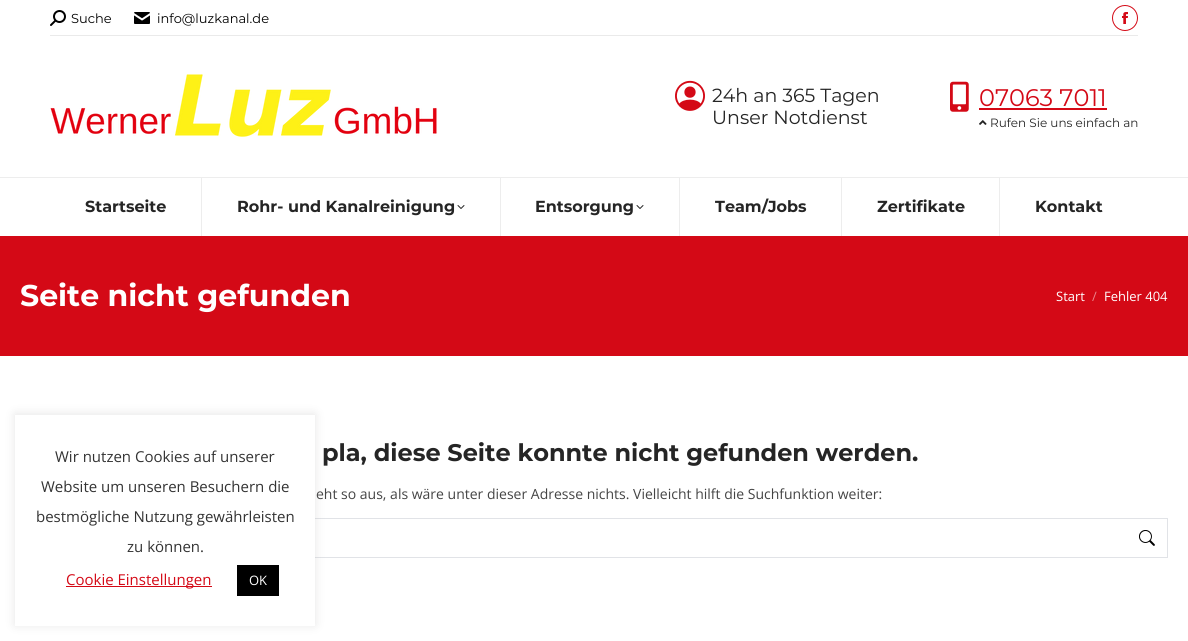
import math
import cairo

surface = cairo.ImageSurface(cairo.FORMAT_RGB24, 1188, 641)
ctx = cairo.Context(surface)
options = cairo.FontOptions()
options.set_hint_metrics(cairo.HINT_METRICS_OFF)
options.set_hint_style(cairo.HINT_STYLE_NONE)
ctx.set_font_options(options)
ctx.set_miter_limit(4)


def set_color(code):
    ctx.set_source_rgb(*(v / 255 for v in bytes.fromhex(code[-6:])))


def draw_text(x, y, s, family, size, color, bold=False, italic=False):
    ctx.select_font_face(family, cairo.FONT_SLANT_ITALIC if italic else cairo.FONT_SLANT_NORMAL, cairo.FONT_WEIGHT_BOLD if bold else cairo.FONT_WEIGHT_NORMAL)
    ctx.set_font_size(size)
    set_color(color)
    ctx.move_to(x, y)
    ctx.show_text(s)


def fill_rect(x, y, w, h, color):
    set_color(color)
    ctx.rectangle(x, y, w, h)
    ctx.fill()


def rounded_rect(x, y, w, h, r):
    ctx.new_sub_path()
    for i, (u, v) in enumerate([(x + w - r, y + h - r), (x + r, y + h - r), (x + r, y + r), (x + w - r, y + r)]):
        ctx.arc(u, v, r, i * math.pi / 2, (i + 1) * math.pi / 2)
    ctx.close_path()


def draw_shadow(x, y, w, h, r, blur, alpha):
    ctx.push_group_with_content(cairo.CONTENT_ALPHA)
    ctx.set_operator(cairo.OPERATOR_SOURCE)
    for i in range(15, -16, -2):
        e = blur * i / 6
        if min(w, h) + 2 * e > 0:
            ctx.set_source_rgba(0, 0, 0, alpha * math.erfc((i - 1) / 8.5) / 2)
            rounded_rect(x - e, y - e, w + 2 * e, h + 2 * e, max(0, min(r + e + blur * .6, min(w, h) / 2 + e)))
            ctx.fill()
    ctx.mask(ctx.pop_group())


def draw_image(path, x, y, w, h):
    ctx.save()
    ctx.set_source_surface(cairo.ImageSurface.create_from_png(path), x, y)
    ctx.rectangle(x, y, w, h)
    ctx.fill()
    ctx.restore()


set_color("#ffffff")
ctx.paint()
draw_image("assets/img1.png", 50, 10, 16, 16)
draw_text(71, 23, "Suche", "Montserrat", 13, "#000000")
draw_image("assets/img2.png", 134, 12, 16, 12)
draw_text(157, 23, "info@luzkanal.de", "Montserrat", 13, "#000000")
ctx.new_path()
ctx.arc(1125, 18, 12.5, 0, 2 * math.pi)
set_color("#d40916")
ctx.set_line_width(1)
ctx.stroke()
draw_image("assets/img3.png", 1122, 12, 6, 12)
fill_rect(50, 35, 1088, 1, "#eaeaea")
draw_image("assets/img4.png", 50, 74, 387, 63)
draw_image("assets/img5.png", 675, 80, 30, 31)
draw_text(712, 102, "24h an 365 Tagen", "Montserrat", 19, "#252525")
draw_text(712, 124, "Unser Notdienst", "Montserrat", 19, "#252525")
draw_image("assets/img6.png", 950, 81, 19, 31)
draw_text(979, 106, "07063 7011", "Montserrat", 24, "#d40916")
fill_rect(979, 108, 128, 2, "#d40916")
draw_image("assets/img7.png", 979, 120, 8, 5)
draw_text(990, 127, "Rufen Sie uns einfach an", "Montserrat", 12, "#252525")
fill_rect(0, 177, 1188, 1, "#ededed")
draw_text(85, 212, "Startseite", "Montserrat", 16, "#252525", bold=True)
fill_rect(201, 178, 1, 58, "#ededed")
draw_text(237, 212, "Rohr- und Kanalreinigung", "Montserrat", 16, "#252525", bold=True)
draw_image("assets/img8.png", 457, 205, 8, 4)
fill_rect(500, 178, 1, 58, "#ededed")
draw_text(535, 212, "Entsorgung", "Montserrat", 16, "#252525", bold=True)
draw_image("assets/img8.png", 636, 205, 8, 4)
fill_rect(679, 178, 1, 58, "#ededed")
draw_text(715, 212, "Team/Jobs", "Montserrat", 16, "#252525", bold=True)
fill_rect(841, 178, 1, 58, "#ededed")
draw_text(877, 212, "Zertifikate", "Montserrat", 16, "#252525", bold=True)
fill_rect(999, 178, 1, 58, "#ededed")
draw_text(1035, 212, "Kontakt", "Montserrat", 16, "#252525", bold=True)
fill_rect(0, 236, 1188, 120, "#d40916")
draw_text(20, 306, "Seite nicht gefunden", "Montserrat", 30, "#ffffff", bold=True)
draw_text(1056, 301, "Start", "Open Sans", 13, "#ffffff")
draw_text(1092, 301, "/", "Open Sans", 13, "#ea848b")
draw_text(1104, 301, "Fehler 404", "Open Sans", 13, "#ffffff")
draw_text(322, 461, "pla, diese Seite konnte nicht gefunden werden.", "Montserrat", 24, "#252525", bold=True)
draw_text(316, 499, "eht so aus, als wäre unter dieser Adresse nichts. Vielleicht hilft die Suchfunktion weiter:", "Open Sans", 14, "#444444")
ctx.rectangle(20.5, 518.5, 1147, 39)
set_color("#e1e3e7")
ctx.stroke()
draw_image("assets/img9.png", 1139, 530, 16, 16)
set_color("#acabab")
draw_shadow(15, 414, 300, 211, 0, 5, 0.3)
fill_rect(15, 415, 300, 211, "#ffffff")
draw_text(55, 462, "Wir nutzen Cookies auf unserer", "Open Sans", 15, "#333333")
draw_text(41, 492, "Website um unseren Besuchern die", "Open Sans", 15, "#333333")
draw_text(36, 522, "bestmögliche Nutzung gewährleisten", "Open Sans", 15, "#333333")
draw_text(127, 552, "zu können.", "Open Sans", 15, "#333333")
fill_rect(66, 586, 146, 1, "#d40916")
draw_text(66, 585, "Cookie Einstellungen", "Open Sans", 15, "#d40916")
fill_rect(237, 565, 42, 31, "#000000")
draw_text(249, 585, "OK", "Open Sans", 13, "#ffffff")
surface.write_to_png("output.png")
